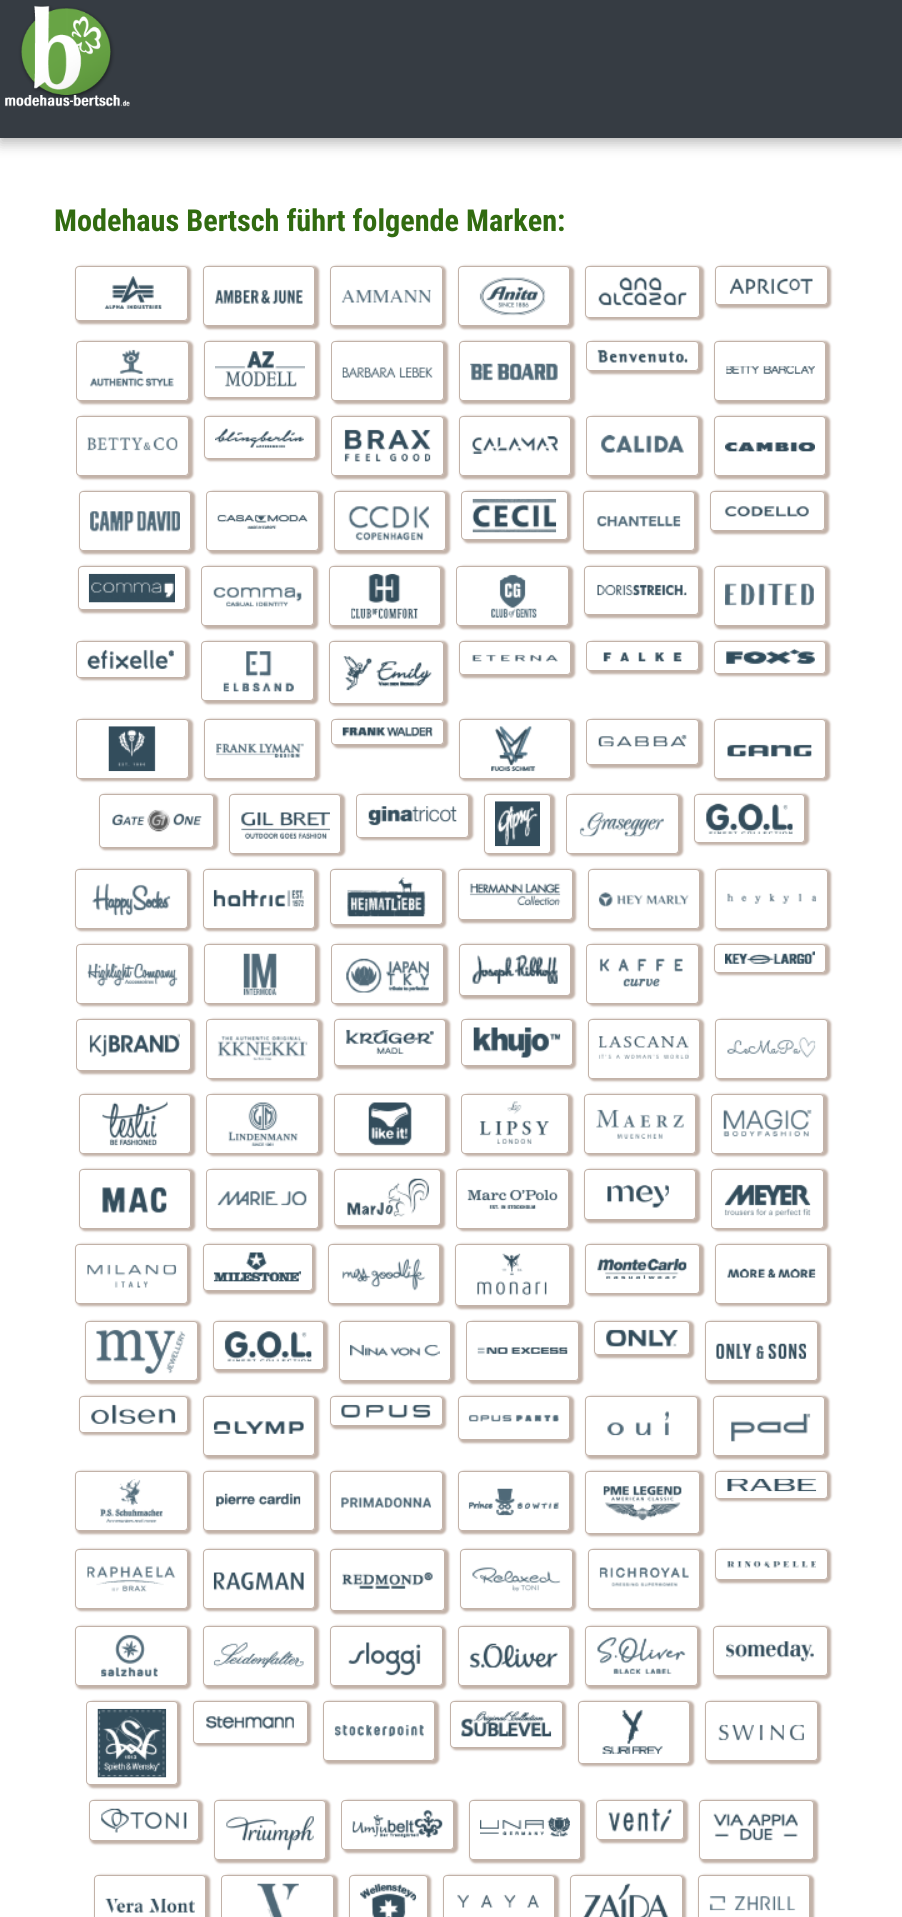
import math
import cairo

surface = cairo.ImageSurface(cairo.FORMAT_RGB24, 902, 1917)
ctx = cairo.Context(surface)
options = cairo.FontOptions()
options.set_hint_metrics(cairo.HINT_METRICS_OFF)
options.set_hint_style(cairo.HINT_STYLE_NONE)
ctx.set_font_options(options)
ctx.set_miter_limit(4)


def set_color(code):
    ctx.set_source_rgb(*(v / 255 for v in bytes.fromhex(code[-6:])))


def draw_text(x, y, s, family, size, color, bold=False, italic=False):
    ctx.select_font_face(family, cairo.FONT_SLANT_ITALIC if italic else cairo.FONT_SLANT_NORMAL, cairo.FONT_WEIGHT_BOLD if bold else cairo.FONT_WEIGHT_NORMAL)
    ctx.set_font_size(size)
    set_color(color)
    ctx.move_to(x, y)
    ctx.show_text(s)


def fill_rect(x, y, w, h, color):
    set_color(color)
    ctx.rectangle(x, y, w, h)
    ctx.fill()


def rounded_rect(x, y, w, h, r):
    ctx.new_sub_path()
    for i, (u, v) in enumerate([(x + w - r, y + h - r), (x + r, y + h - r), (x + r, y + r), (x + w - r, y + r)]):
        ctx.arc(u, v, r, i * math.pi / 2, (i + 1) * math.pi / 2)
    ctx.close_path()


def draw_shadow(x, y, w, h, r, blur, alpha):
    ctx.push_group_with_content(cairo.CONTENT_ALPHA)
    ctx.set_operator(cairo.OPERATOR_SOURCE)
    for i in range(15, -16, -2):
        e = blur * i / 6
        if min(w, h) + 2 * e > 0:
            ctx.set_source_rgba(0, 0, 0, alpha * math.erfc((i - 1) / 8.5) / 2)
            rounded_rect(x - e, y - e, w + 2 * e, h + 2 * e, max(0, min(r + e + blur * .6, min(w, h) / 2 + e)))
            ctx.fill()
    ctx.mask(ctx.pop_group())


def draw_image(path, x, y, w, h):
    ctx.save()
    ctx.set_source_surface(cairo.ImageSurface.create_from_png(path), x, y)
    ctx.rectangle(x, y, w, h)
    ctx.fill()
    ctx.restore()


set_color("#ffffff")
ctx.paint()
set_color("#000000")
draw_shadow(0, 5, 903, 138, 0, 7, 0.28)
fill_rect(0, 0, 902, 138, "#363c43")
draw_image("assets/img1.png", 5, 5, 125, 102)
draw_text(54, 231, "Modehaus Bertsch führt folgende Marken:", "Roboto Condensed", 30.25, "#316b10", bold=True)
set_color("#9a7f6e")
draw_shadow(76, 266, 115, 58, 5, 1, 0.6)
set_color("#ffffff")
rounded_rect(75, 266, 113, 55, 4)
ctx.fill()
rounded_rect(75.5, 266.5, 112, 54, 3.5)
ctx.set_source_rgba(0.604, 0.498, 0.431, 0.6)
ctx.set_line_width(1)
ctx.stroke()
draw_image("assets/img2.png", 104, 276, 58, 33)
set_color("#9a7f6e")
draw_shadow(204, 266, 115, 63, 5, 1, 0.6)
set_color("#ffffff")
rounded_rect(203, 266, 112, 60, 4)
ctx.fill()
rounded_rect(203.5, 266.5, 111, 59, 3.5)
ctx.set_source_rgba(0.604, 0.498, 0.431, 0.6)
ctx.stroke()
draw_image("assets/img3.png", 214, 289, 89, 15)
set_color("#9a7f6e")
draw_shadow(331, 266, 115, 63, 5, 1, 0.6)
set_color("#ffffff")
rounded_rect(330, 266, 113, 60, 4)
ctx.fill()
rounded_rect(330.5, 266.5, 112, 59, 3.5)
ctx.set_source_rgba(0.604, 0.498, 0.431, 0.6)
ctx.stroke()
draw_image("assets/img4.png", 341, 289, 90, 14)
set_color("#9a7f6e")
draw_shadow(459, 266, 115, 63, 5, 1, 0.6)
set_color("#ffffff")
rounded_rect(458, 266, 112, 60, 4)
ctx.fill()
rounded_rect(458.5, 266.5, 111, 59, 3.5)
ctx.set_source_rgba(0.604, 0.498, 0.431, 0.6)
ctx.stroke()
draw_image("assets/img5.png", 479, 277, 67, 39)
set_color("#9a7f6e")
draw_shadow(586, 266, 118, 54, 5, 1, 0.6)
set_color("#ffffff")
rounded_rect(585, 266, 115, 52, 4)
ctx.fill()
rounded_rect(585.5, 266.5, 114, 51, 3.5)
ctx.set_source_rgba(0.604, 0.498, 0.431, 0.6)
ctx.stroke()
draw_image("assets/img6.png", 598, 277, 89, 29)
set_color("#9a7f6e")
draw_shadow(716, 266, 115, 42, 5, 1, 0.6)
set_color("#ffffff")
rounded_rect(715, 266, 113, 39, 4)
ctx.fill()
rounded_rect(715.5, 266.5, 112, 38, 3.5)
ctx.set_source_rgba(0.604, 0.498, 0.431, 0.6)
ctx.stroke()
draw_image("assets/img7.png", 729, 278, 84, 16)
set_color("#9a7f6e")
draw_shadow(78, 341, 115, 63, 5, 1, 0.6)
set_color("#ffffff")
rounded_rect(76, 341, 113, 60, 4)
ctx.fill()
rounded_rect(76.5, 341.5, 112, 59, 3.5)
ctx.set_source_rgba(0.604, 0.498, 0.431, 0.6)
ctx.stroke()
draw_image("assets/img8.png", 89, 349, 85, 38)
set_color("#9a7f6e")
draw_shadow(205, 341, 115, 59, 5, 1, 0.6)
set_color("#ffffff")
rounded_rect(204, 341, 112, 57, 4)
ctx.fill()
rounded_rect(204.5, 341.5, 111, 56, 3.5)
ctx.set_source_rgba(0.604, 0.498, 0.431, 0.6)
ctx.stroke()
draw_image("assets/img9.png", 215, 351, 90, 36)
set_color("#9a7f6e")
draw_shadow(333, 341, 115, 63, 5, 1, 0.6)
set_color("#ffffff")
rounded_rect(331, 341, 113, 60, 4)
ctx.fill()
rounded_rect(331.5, 341.5, 112, 59, 3.5)
ctx.set_source_rgba(0.604, 0.498, 0.431, 0.6)
ctx.stroke()
draw_image("assets/img10.png", 342, 367, 91, 11)
set_color("#9a7f6e")
draw_shadow(460, 341, 115, 63, 5, 1, 0.6)
set_color("#ffffff")
rounded_rect(459, 341, 112, 60, 4)
ctx.fill()
rounded_rect(459.5, 341.5, 111, 59, 3.5)
ctx.set_source_rgba(0.604, 0.498, 0.431, 0.6)
ctx.stroke()
draw_image("assets/img11.png", 470, 363, 88, 18)
set_color("#9a7f6e")
draw_shadow(588, 341, 115, 33, 5, 1, 0.6)
set_color("#ffffff")
rounded_rect(586, 341, 113, 30, 4)
ctx.fill()
rounded_rect(586.5, 341.5, 112, 29, 3.5)
ctx.set_source_rgba(0.604, 0.498, 0.431, 0.6)
ctx.stroke()
draw_image("assets/img12.png", 597, 349, 91, 14)
set_color("#9a7f6e")
draw_shadow(715, 341, 115, 63, 5, 1, 0.6)
set_color("#ffffff")
rounded_rect(714, 341, 112, 60, 4)
ctx.fill()
rounded_rect(714.5, 341.5, 111, 59, 3.5)
ctx.set_source_rgba(0.604, 0.498, 0.431, 0.6)
ctx.stroke()
draw_image("assets/img13.png", 726, 366, 89, 8)
set_color("#9a7f6e")
draw_shadow(78, 416, 115, 63, 5, 1, 0.6)
set_color("#ffffff")
rounded_rect(76, 416, 113, 60, 4)
ctx.fill()
rounded_rect(76.5, 416.5, 112, 59, 3.5)
ctx.set_source_rgba(0.604, 0.498, 0.431, 0.6)
ctx.stroke()
draw_image("assets/img14.png", 87, 437, 91, 14)
set_color("#9a7f6e")
draw_shadow(205, 416, 115, 45, 5, 1, 0.6)
set_color("#ffffff")
rounded_rect(204, 416, 112, 43, 4)
ctx.fill()
rounded_rect(204.5, 416.5, 111, 42, 3.5)
ctx.set_source_rgba(0.604, 0.498, 0.431, 0.6)
ctx.stroke()
draw_image("assets/img15.png", 215, 428, 89, 20)
set_color("#9a7f6e")
draw_shadow(333, 416, 115, 63, 5, 1, 0.6)
set_color("#ffffff")
rounded_rect(331, 416, 113, 60, 4)
ctx.fill()
rounded_rect(331.5, 416.5, 112, 59, 3.5)
ctx.set_source_rgba(0.604, 0.498, 0.431, 0.6)
ctx.stroke()
draw_image("assets/img16.png", 344, 429, 87, 33)
set_color("#9a7f6e")
draw_shadow(460, 416, 115, 63, 5, 1, 0.6)
set_color("#ffffff")
rounded_rect(459, 416, 112, 60, 4)
ctx.fill()
rounded_rect(459.5, 416.5, 111, 59, 3.5)
ctx.set_source_rgba(0.604, 0.498, 0.431, 0.6)
ctx.stroke()
draw_image("assets/img17.png", 472, 436, 86, 18)
set_color("#9a7f6e")
draw_shadow(588, 416, 115, 63, 5, 1, 0.6)
set_color("#ffffff")
rounded_rect(586, 416, 113, 60, 4)
ctx.fill()
rounded_rect(586.5, 416.5, 112, 59, 3.5)
ctx.set_source_rgba(0.604, 0.498, 0.431, 0.6)
ctx.stroke()
draw_image("assets/img18.png", 601, 434, 83, 19)
set_color("#9a7f6e")
draw_shadow(715, 416, 115, 63, 5, 1, 0.6)
set_color("#ffffff")
rounded_rect(714, 416, 112, 60, 4)
ctx.fill()
rounded_rect(714.5, 416.5, 111, 59, 3.5)
ctx.set_source_rgba(0.604, 0.498, 0.431, 0.6)
ctx.stroke()
draw_image("assets/img19.png", 725, 442, 90, 10)
set_color("#9a7f6e")
draw_shadow(80, 491, 115, 63, 5, 1, 0.6)
set_color("#ffffff")
rounded_rect(79, 491, 112, 60, 4)
ctx.fill()
rounded_rect(79.5, 491.5, 111, 59, 3.5)
ctx.set_source_rgba(0.604, 0.498, 0.431, 0.6)
ctx.stroke()
draw_image("assets/img20.png", 90, 511, 90, 21)
set_color("#9a7f6e")
draw_shadow(208, 491, 115, 63, 5, 1, 0.6)
set_color("#ffffff")
rounded_rect(206, 491, 113, 60, 4)
ctx.fill()
rounded_rect(206.5, 491.5, 112, 59, 3.5)
ctx.set_source_rgba(0.604, 0.498, 0.431, 0.6)
ctx.stroke()
draw_image("assets/img21.png", 217, 514, 91, 15)
set_color("#9a7f6e")
draw_shadow(335, 491, 115, 63, 5, 1, 0.6)
set_color("#ffffff")
rounded_rect(334, 491, 112, 60, 4)
ctx.fill()
rounded_rect(334.5, 491.5, 111, 59, 3.5)
ctx.set_source_rgba(0.604, 0.498, 0.431, 0.6)
ctx.stroke()
draw_image("assets/img22.png", 348, 506, 81, 35)
set_color("#9a7f6e")
draw_shadow(463, 491, 108, 52, 5, 1, 0.6)
set_color("#ffffff")
rounded_rect(461, 491, 107, 49, 4)
ctx.fill()
rounded_rect(461.5, 491.5, 106, 48, 3.5)
ctx.set_source_rgba(0.604, 0.498, 0.431, 0.6)
ctx.stroke()
draw_image("assets/img23.png", 472, 498, 85, 35)
set_color("#9a7f6e")
draw_shadow(584, 491, 115, 63, 5, 1, 0.6)
set_color("#ffffff")
rounded_rect(583, 491, 112, 60, 4)
ctx.fill()
rounded_rect(583.5, 491.5, 111, 59, 3.5)
ctx.set_source_rgba(0.604, 0.498, 0.431, 0.6)
ctx.stroke()
draw_image("assets/img24.png", 597, 516, 84, 11)
set_color("#9a7f6e")
draw_shadow(711, 491, 118, 43, 5, 1, 0.6)
set_color("#ffffff")
rounded_rect(710, 491, 115, 40, 4)
ctx.fill()
rounded_rect(710.5, 491.5, 114, 39, 3.5)
ctx.set_source_rgba(0.604, 0.498, 0.431, 0.6)
ctx.stroke()
draw_image("assets/img25.png", 724, 506, 85, 11)
set_color("#9a7f6e")
draw_shadow(79, 566, 111, 47, 5, 1, 0.6)
set_color("#ffffff")
rounded_rect(78, 566, 108, 44, 4)
ctx.fill()
rounded_rect(78.5, 566.5, 107, 43, 3.5)
ctx.set_source_rgba(0.604, 0.498, 0.431, 0.6)
ctx.stroke()
draw_image("assets/img26.png", 88, 573, 87, 30)
set_color("#9a7f6e")
draw_shadow(203, 566, 115, 63, 5, 1, 0.6)
set_color("#ffffff")
rounded_rect(201, 566, 113, 60, 4)
ctx.fill()
rounded_rect(201.5, 566.5, 112, 59, 3.5)
ctx.set_source_rgba(0.604, 0.498, 0.431, 0.6)
ctx.stroke()
draw_image("assets/img27.png", 213, 587, 89, 20)
set_color("#9a7f6e")
draw_shadow(330, 566, 115, 63, 5, 1, 0.6)
set_color("#ffffff")
rounded_rect(329, 566, 112, 60, 4)
ctx.fill()
rounded_rect(329.5, 566.5, 111, 59, 3.5)
ctx.set_source_rgba(0.604, 0.498, 0.431, 0.6)
ctx.stroke()
draw_image("assets/img28.png", 351, 573, 67, 46)
set_color("#9a7f6e")
draw_shadow(458, 566, 115, 63, 5, 1, 0.6)
set_color("#ffffff")
rounded_rect(456, 566, 113, 60, 4)
ctx.fill()
rounded_rect(456.5, 566.5, 112, 59, 3.5)
ctx.set_source_rgba(0.604, 0.498, 0.431, 0.6)
ctx.stroke()
draw_image("assets/img29.png", 491, 574, 46, 44)
set_color("#9a7f6e")
draw_shadow(585, 566, 118, 52, 5, 1, 0.6)
set_color("#ffffff")
rounded_rect(584, 566, 115, 49, 4)
ctx.fill()
rounded_rect(584.5, 566.5, 114, 48, 3.5)
ctx.set_source_rgba(0.604, 0.498, 0.431, 0.6)
ctx.stroke()
draw_image("assets/img30.png", 597, 584, 90, 12)
set_color("#9a7f6e")
draw_shadow(715, 566, 115, 63, 5, 1, 0.6)
set_color("#ffffff")
rounded_rect(714, 566, 112, 60, 4)
ctx.fill()
rounded_rect(714.5, 566.5, 111, 59, 3.5)
ctx.set_source_rgba(0.604, 0.498, 0.431, 0.6)
ctx.stroke()
draw_image("assets/img31.png", 725, 583, 89, 23)
set_color("#9a7f6e")
draw_shadow(78, 641, 112, 39, 5, 1, 0.6)
set_color("#ffffff")
rounded_rect(76, 641, 110, 37, 4)
ctx.fill()
rounded_rect(76.5, 641.5, 109, 36, 3.5)
ctx.set_source_rgba(0.604, 0.498, 0.431, 0.6)
ctx.stroke()
draw_image("assets/img32.png", 87, 649, 87, 21)
set_color("#9a7f6e")
draw_shadow(203, 641, 115, 63, 5, 1, 0.6)
set_color("#ffffff")
rounded_rect(201, 641, 113, 60, 4)
ctx.fill()
rounded_rect(201.5, 641.5, 112, 59, 3.5)
ctx.set_source_rgba(0.604, 0.498, 0.431, 0.6)
ctx.stroke()
draw_image("assets/img33.png", 223, 651, 71, 41)
set_color("#9a7f6e")
draw_shadow(330, 641, 118, 65, 5, 1, 0.6)
set_color("#ffffff")
rounded_rect(329, 641, 115, 63, 4)
ctx.fill()
rounded_rect(329.5, 641.5, 114, 62, 3.5)
ctx.set_source_rgba(0.604, 0.498, 0.431, 0.6)
ctx.stroke()
draw_image("assets/img34.png", 343, 656, 89, 35)
set_color("#9a7f6e")
draw_shadow(460, 641, 115, 37, 5, 1, 0.6)
set_color("#ffffff")
rounded_rect(459, 641, 112, 34, 4)
ctx.fill()
rounded_rect(459.5, 641.5, 111, 33, 3.5)
ctx.set_source_rgba(0.604, 0.498, 0.431, 0.6)
ctx.stroke()
draw_image("assets/img35.png", 472, 654, 86, 8)
set_color("#9a7f6e")
draw_shadow(588, 641, 115, 33, 5, 1, 0.6)
set_color("#ffffff")
rounded_rect(586, 641, 113, 30, 4)
ctx.fill()
rounded_rect(586.5, 641.5, 112, 29, 3.5)
ctx.set_source_rgba(0.604, 0.498, 0.431, 0.6)
ctx.stroke()
draw_image("assets/img36.png", 603, 652, 79, 10)
set_color("#9a7f6e")
draw_shadow(715, 641, 115, 35, 5, 1, 0.6)
set_color("#ffffff")
rounded_rect(714, 641, 112, 33, 4)
ctx.fill()
rounded_rect(714.5, 641.5, 111, 32, 3.5)
ctx.set_source_rgba(0.604, 0.498, 0.431, 0.6)
ctx.stroke()
draw_image("assets/img37.png", 726, 648, 89, 16)
set_color("#9a7f6e")
draw_shadow(78, 719, 115, 62, 5, 1, 0.6)
set_color("#ffffff")
rounded_rect(76, 719, 113, 60, 4)
ctx.fill()
rounded_rect(76.5, 719.5, 112, 59, 3.5)
ctx.set_source_rgba(0.604, 0.498, 0.431, 0.6)
ctx.stroke()
draw_image("assets/img38.png", 108, 726, 48, 46)
set_color("#9a7f6e")
draw_shadow(205, 719, 115, 62, 5, 1, 0.6)
set_color("#ffffff")
rounded_rect(204, 719, 112, 60, 4)
ctx.fill()
rounded_rect(204.5, 719.5, 111, 59, 3.5)
ctx.set_source_rgba(0.604, 0.498, 0.431, 0.6)
ctx.stroke()
draw_image("assets/img39.png", 216, 743, 88, 15)
set_color("#9a7f6e")
draw_shadow(333, 719, 115, 29, 5, 1, 0.6)
set_color("#ffffff")
rounded_rect(331, 719, 113, 26, 4)
ctx.fill()
rounded_rect(331.5, 719.5, 112, 25, 3.5)
ctx.set_source_rgba(0.604, 0.498, 0.431, 0.6)
ctx.stroke()
draw_image("assets/img40.png", 342, 727, 91, 10)
set_color("#9a7f6e")
draw_shadow(460, 719, 115, 62, 5, 1, 0.6)
set_color("#ffffff")
rounded_rect(459, 719, 112, 60, 4)
ctx.fill()
rounded_rect(459.5, 719.5, 111, 59, 3.5)
ctx.set_source_rgba(0.604, 0.498, 0.431, 0.6)
ctx.stroke()
draw_image("assets/img41.png", 491, 726, 45, 46)
set_color("#9a7f6e")
draw_shadow(588, 719, 115, 49, 5, 1, 0.6)
set_color("#ffffff")
rounded_rect(586, 719, 113, 46, 4)
ctx.fill()
rounded_rect(586.5, 719.5, 112, 45, 3.5)
ctx.set_source_rgba(0.604, 0.498, 0.431, 0.6)
ctx.stroke()
draw_image("assets/img42.png", 598, 734, 89, 13)
set_color("#9a7f6e")
draw_shadow(715, 719, 115, 62, 5, 1, 0.6)
set_color("#ffffff")
rounded_rect(714, 719, 112, 60, 4)
ctx.fill()
rounded_rect(714.5, 719.5, 111, 59, 3.5)
ctx.set_source_rgba(0.604, 0.498, 0.431, 0.6)
ctx.stroke()
draw_image("assets/img43.png", 727, 744, 85, 13)
set_color("#9a7f6e")
draw_shadow(100, 794, 118, 56, 5, 1, 0.6)
set_color("#ffffff")
rounded_rect(99, 794, 115, 54, 4)
ctx.fill()
rounded_rect(99.5, 794.5, 114, 53, 3.5)
ctx.set_source_rgba(0.604, 0.498, 0.431, 0.6)
ctx.stroke()
draw_image("assets/img44.png", 112, 809, 90, 23)
set_color("#9a7f6e")
draw_shadow(230, 794, 115, 62, 5, 1, 0.6)
set_color("#ffffff")
rounded_rect(229, 794, 112, 60, 4)
ctx.fill()
rounded_rect(229.5, 794.5, 111, 59, 3.5)
ctx.set_source_rgba(0.604, 0.498, 0.431, 0.6)
ctx.stroke()
draw_image("assets/img45.png", 241, 812, 89, 27)
set_color("#9a7f6e")
draw_shadow(358, 794, 115, 46, 5, 1, 0.6)
set_color("#ffffff")
rounded_rect(356, 794, 113, 44, 4)
ctx.fill()
rounded_rect(356.5, 794.5, 112, 43, 3.5)
ctx.set_source_rgba(0.604, 0.498, 0.431, 0.6)
ctx.stroke()
draw_image("assets/img46.png", 368, 806, 89, 20)
set_color("#9a7f6e")
draw_shadow(485, 794, 70, 62, 5, 1, 0.6)
set_color("#ffffff")
rounded_rect(484, 794, 67, 60, 4)
ctx.fill()
rounded_rect(484.5, 794.5, 66, 59, 3.5)
ctx.set_source_rgba(0.604, 0.498, 0.431, 0.6)
ctx.stroke()
draw_image("assets/img47.png", 495, 801, 45, 46)
set_color("#9a7f6e")
draw_shadow(568, 794, 115, 62, 5, 1, 0.6)
set_color("#ffffff")
rounded_rect(566, 794, 113, 60, 4)
ctx.fill()
rounded_rect(566.5, 794.5, 112, 59, 3.5)
ctx.set_source_rgba(0.604, 0.498, 0.431, 0.6)
ctx.stroke()
draw_image("assets/img48.png", 579, 812, 85, 25)
set_color("#9a7f6e")
draw_shadow(695, 794, 114, 51, 5, 1, 0.6)
set_color("#ffffff")
rounded_rect(694, 794, 111, 49, 4)
ctx.fill()
rounded_rect(694.5, 794.5, 110, 48, 3.5)
ctx.set_source_rgba(0.604, 0.498, 0.431, 0.6)
ctx.stroke()
draw_image("assets/img49.png", 706, 803, 87, 31)
set_color("#9a7f6e")
draw_shadow(76, 869, 115, 62, 5, 1, 0.6)
set_color("#ffffff")
rounded_rect(75, 869, 113, 60, 4)
ctx.fill()
rounded_rect(75.5, 869.5, 112, 59, 3.5)
ctx.set_source_rgba(0.604, 0.498, 0.431, 0.6)
ctx.stroke()
draw_image("assets/img50.png", 92, 883, 79, 33)
set_color("#9a7f6e")
draw_shadow(204, 869, 115, 62, 5, 1, 0.6)
set_color("#ffffff")
rounded_rect(203, 869, 112, 60, 4)
ctx.fill()
rounded_rect(203.5, 869.5, 111, 59, 3.5)
ctx.set_source_rgba(0.604, 0.498, 0.431, 0.6)
ctx.stroke()
draw_image("assets/img51.png", 213, 889, 91, 18)
set_color("#9a7f6e")
draw_shadow(331, 869, 115, 59, 5, 1, 0.6)
set_color("#ffffff")
rounded_rect(330, 869, 113, 56, 4)
ctx.fill()
rounded_rect(330.5, 869.5, 112, 55, 3.5)
ctx.set_source_rgba(0.604, 0.498, 0.431, 0.6)
ctx.stroke()
draw_image("assets/img52.png", 347, 877, 79, 40)
set_color("#9a7f6e")
draw_shadow(459, 869, 117, 54, 5, 1, 0.6)
set_color("#ffffff")
rounded_rect(458, 869, 115, 51, 4)
ctx.fill()
rounded_rect(458.5, 869.5, 114, 50, 3.5)
ctx.set_source_rgba(0.604, 0.498, 0.431, 0.6)
ctx.stroke()
draw_image("assets/img53.png", 469, 883, 92, 23)
set_color("#9a7f6e")
draw_shadow(589, 869, 115, 62, 5, 1, 0.6)
set_color("#ffffff")
rounded_rect(588, 869, 112, 60, 4)
ctx.fill()
rounded_rect(588.5, 869.5, 111, 59, 3.5)
ctx.set_source_rgba(0.604, 0.498, 0.431, 0.6)
ctx.stroke()
draw_image("assets/img54.png", 598, 892, 91, 15)
set_color("#9a7f6e")
draw_shadow(716, 869, 115, 62, 5, 1, 0.6)
set_color("#ffffff")
rounded_rect(715, 869, 113, 60, 4)
ctx.fill()
rounded_rect(715.5, 869.5, 112, 59, 3.5)
ctx.set_source_rgba(0.604, 0.498, 0.431, 0.6)
ctx.stroke()
draw_image("assets/img55.png", 727, 893, 90, 11)
set_color("#9a7f6e")
draw_shadow(78, 944, 115, 62, 5, 1, 0.6)
set_color("#ffffff")
rounded_rect(76, 944, 113, 60, 4)
ctx.fill()
rounded_rect(76.5, 944.5, 112, 59, 3.5)
ctx.set_source_rgba(0.604, 0.498, 0.431, 0.6)
ctx.stroke()
draw_image("assets/img56.png", 87, 963, 91, 24)
set_color("#9a7f6e")
draw_shadow(205, 944, 115, 62, 5, 1, 0.6)
set_color("#ffffff")
rounded_rect(204, 944, 112, 60, 4)
ctx.fill()
rounded_rect(204.5, 944.5, 111, 59, 3.5)
ctx.set_source_rgba(0.604, 0.498, 0.431, 0.6)
ctx.stroke()
draw_image("assets/img57.png", 243, 953, 34, 43)
set_color("#9a7f6e")
draw_shadow(333, 944, 115, 62, 5, 1, 0.6)
set_color("#ffffff")
rounded_rect(331, 944, 113, 60, 4)
ctx.fill()
rounded_rect(331.5, 944.5, 112, 59, 3.5)
ctx.set_source_rgba(0.604, 0.498, 0.431, 0.6)
ctx.stroke()
draw_image("assets/img58.png", 346, 958, 83, 35)
set_color("#9a7f6e")
draw_shadow(460, 944, 115, 55, 5, 1, 0.6)
set_color("#ffffff")
rounded_rect(459.5, 944.5, 111, 51, 3.5)
ctx.fill_preserve()
set_color("#c2b2a8")
ctx.stroke()
draw_image("assets/img59.png", 472, 954, 86, 30)
set_color("#9a7f6e")
draw_shadow(588, 944, 115, 62, 5, 1, 0.6)
set_color("#ffffff")
rounded_rect(586, 944, 113, 60, 4)
ctx.fill()
rounded_rect(586.5, 944.5, 112, 59, 3.5)
ctx.set_source_rgba(0.604, 0.498, 0.431, 0.6)
ctx.stroke()
draw_image("assets/img60.png", 599, 958, 84, 29)
set_color("#9a7f6e")
draw_shadow(715, 944, 115, 31, 5, 1, 0.6)
set_color("#ffffff")
rounded_rect(714, 944, 112, 29, 4)
ctx.fill()
rounded_rect(714.5, 944.5, 111, 28, 3.5)
ctx.set_source_rgba(0.604, 0.498, 0.431, 0.6)
ctx.stroke()
draw_image("assets/img61.png", 725, 951, 90, 13)
set_color("#9a7f6e")
draw_shadow(78, 1019, 117, 55, 5, 1, 0.6)
set_color("#ffffff")
rounded_rect(76.5, 1019.5, 114, 51, 3.5)
ctx.fill_preserve()
set_color("#c2b2a8")
ctx.stroke()
draw_image("assets/img62.png", 89, 1033, 91, 24)
set_color("#9a7f6e")
draw_shadow(208, 1019, 115, 62, 5, 1, 0.6)
set_color("#ffffff")
rounded_rect(206, 1019, 113, 60, 4)
ctx.fill()
rounded_rect(206.5, 1019.5, 112, 59, 3.5)
ctx.set_source_rgba(0.604, 0.498, 0.431, 0.6)
ctx.stroke()
draw_image("assets/img63.png", 217, 1036, 91, 25)
set_color("#9a7f6e")
draw_shadow(335, 1019, 115, 50, 5, 1, 0.6)
set_color("#ffffff")
rounded_rect(334.5, 1019.5, 111, 46, 3.5)
ctx.fill_preserve()
set_color("#c2b2a8")
ctx.stroke()
draw_image("assets/img64.png", 346, 1029, 88, 25)
set_color("#9a7f6e")
draw_shadow(463, 1019, 113, 50, 5, 1, 0.6)
set_color("#ffffff")
rounded_rect(461, 1019, 112, 47, 4)
ctx.fill()
rounded_rect(461.5, 1019.5, 111, 46, 3.5)
ctx.set_source_rgba(0.604, 0.498, 0.431, 0.6)
ctx.stroke()
draw_image("assets/img65.png", 473, 1027, 88, 31)
set_color("#9a7f6e")
draw_shadow(589, 1019, 115, 62, 5, 1, 0.6)
set_color("#ffffff")
rounded_rect(588, 1019, 112, 60, 4)
ctx.fill()
rounded_rect(588.5, 1019.5, 111, 59, 3.5)
ctx.set_source_rgba(0.604, 0.498, 0.431, 0.6)
ctx.stroke()
draw_image("assets/img66.png", 598, 1036, 91, 23)
set_color("#9a7f6e")
draw_shadow(716, 1019, 115, 62, 5, 1, 0.6)
set_color("#ffffff")
rounded_rect(715, 1019, 113, 60, 4)
ctx.fill()
rounded_rect(715.5, 1019.5, 112, 59, 3.5)
ctx.set_source_rgba(0.604, 0.498, 0.431, 0.6)
ctx.stroke()
draw_image("assets/img67.png", 727, 1037, 89, 21)
set_color("#9a7f6e")
draw_shadow(80, 1094, 115, 62, 5, 1, 0.6)
set_color("#ffffff")
rounded_rect(79, 1094, 112, 60, 4)
ctx.fill()
rounded_rect(79.5, 1094.5, 111, 59, 3.5)
ctx.set_source_rgba(0.604, 0.498, 0.431, 0.6)
ctx.stroke()
draw_image("assets/img68.png", 102, 1101, 66, 45)
set_color("#9a7f6e")
draw_shadow(208, 1094, 115, 62, 5, 1, 0.6)
set_color("#ffffff")
rounded_rect(206, 1094, 113, 60, 4)
ctx.fill()
rounded_rect(206.5, 1094.5, 112, 59, 3.5)
ctx.set_source_rgba(0.604, 0.498, 0.431, 0.6)
ctx.stroke()
draw_image("assets/img69.png", 228, 1102, 70, 45)
set_color("#9a7f6e")
draw_shadow(335, 1094, 115, 62, 5, 1, 0.6)
set_color("#ffffff")
rounded_rect(334, 1094, 112, 60, 4)
ctx.fill()
rounded_rect(334.5, 1094.5, 111, 59, 3.5)
ctx.set_source_rgba(0.604, 0.498, 0.431, 0.6)
ctx.stroke()
draw_image("assets/img70.png", 368, 1102, 44, 44)
set_color("#9a7f6e")
draw_shadow(463, 1094, 110, 62, 5, 1, 0.6)
set_color("#ffffff")
rounded_rect(461, 1094, 108, 60, 4)
ctx.fill()
rounded_rect(461.5, 1094.5, 107, 59, 3.5)
ctx.set_source_rgba(0.604, 0.498, 0.431, 0.6)
ctx.stroke()
draw_image("assets/img71.png", 479, 1101, 70, 43)
set_color("#9a7f6e")
draw_shadow(585, 1094, 115, 62, 5, 1, 0.6)
set_color("#ffffff")
rounded_rect(584, 1094, 112, 60, 4)
ctx.fill()
rounded_rect(584.5, 1094.5, 111, 59, 3.5)
ctx.set_source_rgba(0.604, 0.498, 0.431, 0.6)
ctx.stroke()
draw_image("assets/img72.png", 596, 1109, 88, 30)
set_color("#9a7f6e")
draw_shadow(713, 1094, 115, 62, 5, 1, 0.6)
set_color("#ffffff")
rounded_rect(711, 1094, 113, 60, 4)
ctx.fill()
rounded_rect(711.5, 1094.5, 112, 59, 3.5)
ctx.set_source_rgba(0.604, 0.498, 0.431, 0.6)
ctx.stroke()
draw_image("assets/img73.png", 723, 1109, 89, 28)
set_color("#9a7f6e")
draw_shadow(80, 1169, 115, 62, 5, 1, 0.6)
set_color("#ffffff")
rounded_rect(79, 1169, 112, 60, 4)
ctx.fill()
rounded_rect(79.5, 1169.5, 111, 59, 3.5)
ctx.set_source_rgba(0.604, 0.498, 0.431, 0.6)
ctx.stroke()
draw_image("assets/img74.png", 102, 1187, 65, 26)
set_color("#9a7f6e")
draw_shadow(208, 1169, 115, 62, 5, 1, 0.6)
set_color("#ffffff")
rounded_rect(206, 1169, 113, 60, 4)
ctx.fill()
rounded_rect(206.5, 1169.5, 112, 59, 3.5)
ctx.set_source_rgba(0.604, 0.498, 0.431, 0.6)
ctx.stroke()
draw_image("assets/img75.png", 217, 1191, 90, 15)
set_color("#9a7f6e")
draw_shadow(335, 1169, 110, 60, 5, 1, 0.6)
set_color("#ffffff")
rounded_rect(334.5, 1169.5, 106, 56, 3.5)
ctx.fill_preserve()
set_color("#c2b2a8")
ctx.stroke()
draw_image("assets/img76.png", 347, 1178, 82, 39)
set_color("#9a7f6e")
draw_shadow(458, 1169, 115, 62, 5, 1, 0.6)
set_color("#ffffff")
rounded_rect(456, 1169, 113, 60, 4)
ctx.fill()
rounded_rect(456.5, 1169.5, 112, 59, 3.5)
ctx.set_source_rgba(0.604, 0.498, 0.431, 0.6)
ctx.stroke()
draw_image("assets/img77.png", 467, 1189, 91, 20)
set_color("#9a7f6e")
draw_shadow(585, 1169, 115, 54, 5, 1, 0.6)
set_color("#ffffff")
rounded_rect(584, 1169, 112, 51, 4)
ctx.fill()
rounded_rect(584.5, 1169.5, 111, 50, 3.5)
ctx.set_source_rgba(0.604, 0.498, 0.431, 0.6)
ctx.stroke()
draw_image("assets/img78.png", 607, 1184, 62, 24)
set_color("#9a7f6e")
draw_shadow(713, 1169, 115, 62, 5, 1, 0.6)
set_color("#ffffff")
rounded_rect(711, 1169, 113, 60, 4)
ctx.fill()
rounded_rect(711.5, 1169.5, 112, 59, 3.5)
ctx.set_source_rgba(0.604, 0.498, 0.431, 0.6)
ctx.stroke()
draw_image("assets/img79.png", 724, 1184, 87, 33)
set_color("#9a7f6e")
draw_shadow(76, 1244, 115, 62, 5, 1, 0.6)
set_color("#ffffff")
rounded_rect(75, 1244, 113, 60, 4)
ctx.fill()
rounded_rect(75.5, 1244.5, 112, 59, 3.5)
ctx.set_source_rgba(0.604, 0.498, 0.431, 0.6)
ctx.stroke()
draw_image("assets/img80.png", 87, 1264, 90, 24)
set_color("#9a7f6e")
draw_shadow(204, 1244, 112, 50, 5, 1, 0.6)
set_color("#ffffff")
rounded_rect(203, 1244, 110, 47, 4)
ctx.fill()
rounded_rect(203.5, 1244.5, 109, 46, 3.5)
ctx.set_source_rgba(0.604, 0.498, 0.431, 0.6)
ctx.stroke()
draw_image("assets/img81.png", 213, 1252, 89, 30)
set_color("#9a7f6e")
draw_shadow(329, 1244, 115, 62, 5, 1, 0.6)
set_color("#ffffff")
rounded_rect(328, 1244, 112, 60, 4)
ctx.fill()
rounded_rect(328.5, 1244.5, 111, 59, 3.5)
ctx.set_source_rgba(0.604, 0.498, 0.431, 0.6)
ctx.stroke()
draw_image("assets/img82.png", 342, 1258, 84, 33)
set_color("#9a7f6e")
draw_shadow(456, 1244, 118, 65, 5, 1, 0.6)
set_color("#ffffff")
rounded_rect(455, 1244, 115, 62, 4)
ctx.fill()
rounded_rect(455.5, 1244.5, 114, 61, 3.5)
ctx.set_source_rgba(0.604, 0.498, 0.431, 0.6)
ctx.stroke()
draw_image("assets/img83.png", 477, 1253, 70, 43)
set_color("#9a7f6e")
draw_shadow(586, 1244, 118, 52, 5, 1, 0.6)
set_color("#ffffff")
rounded_rect(585, 1244, 115, 50, 4)
ctx.fill()
rounded_rect(585.5, 1244.5, 114, 49, 3.5)
ctx.set_source_rgba(0.604, 0.498, 0.431, 0.6)
ctx.stroke()
draw_image("assets/img84.png", 597, 1258, 90, 21)
set_color("#9a7f6e")
draw_shadow(716, 1244, 115, 62, 5, 1, 0.6)
set_color("#ffffff")
rounded_rect(715, 1244, 113, 60, 4)
ctx.fill()
rounded_rect(715.5, 1244.5, 112, 59, 3.5)
ctx.set_source_rgba(0.604, 0.498, 0.431, 0.6)
ctx.stroke()
draw_image("assets/img85.png", 727, 1268, 89, 10)
set_color("#9a7f6e")
draw_shadow(86, 1321, 115, 63, 5, 1, 0.6)
set_color("#ffffff")
rounded_rect(85, 1321, 113, 60, 4)
ctx.fill()
rounded_rect(85.5, 1321.5, 112, 59, 3.5)
ctx.set_source_rgba(0.604, 0.498, 0.431, 0.6)
ctx.stroke()
draw_image("assets/img86.png", 96, 1329, 90, 45)
set_color("#9a7f6e")
draw_shadow(214, 1321, 114, 52, 5, 1, 0.6)
set_color("#ffffff")
rounded_rect(213, 1321, 111, 49, 4)
ctx.fill()
rounded_rect(213.5, 1321.5, 110, 48, 3.5)
ctx.set_source_rgba(0.604, 0.498, 0.431, 0.6)
ctx.stroke()
draw_image("assets/img87.png", 224, 1331, 88, 31)
set_color("#9a7f6e")
draw_shadow(340, 1321, 115, 63, 5, 1, 0.6)
set_color("#ffffff")
rounded_rect(339, 1321, 112, 60, 4)
ctx.fill()
rounded_rect(339.5, 1321.5, 111, 59, 3.5)
ctx.set_source_rgba(0.604, 0.498, 0.431, 0.6)
ctx.stroke()
draw_image("assets/img88.png", 350, 1344, 90, 13)
set_color("#9a7f6e")
draw_shadow(468, 1321, 115, 63, 5, 1, 0.6)
set_color("#ffffff")
rounded_rect(466, 1321, 113, 60, 4)
ctx.fill()
rounded_rect(466.5, 1321.5, 112, 59, 3.5)
ctx.set_source_rgba(0.604, 0.498, 0.431, 0.6)
ctx.stroke()
draw_image("assets/img89.png", 477, 1347, 91, 7)
set_color("#9a7f6e")
draw_shadow(595, 1321, 99, 37, 5, 1, 0.6)
set_color("#ffffff")
rounded_rect(594, 1321, 96, 34, 4)
ctx.fill()
rounded_rect(594.5, 1321.5, 95, 33, 3.5)
ctx.set_source_rgba(0.604, 0.498, 0.431, 0.6)
ctx.stroke()
draw_image("assets/img90.png", 606, 1329, 72, 18)
set_color("#9a7f6e")
draw_shadow(706, 1321, 115, 63, 5, 1, 0.6)
set_color("#ffffff")
rounded_rect(705, 1321, 113, 60, 4)
ctx.fill()
rounded_rect(705.5, 1321.5, 112, 59, 3.5)
ctx.set_source_rgba(0.604, 0.498, 0.431, 0.6)
ctx.stroke()
draw_image("assets/img91.png", 716, 1343, 91, 16)
set_color("#9a7f6e")
draw_shadow(80, 1396, 111, 39, 5, 1, 0.6)
set_color("#ffffff")
rounded_rect(79, 1396, 109, 37, 4)
ctx.fill()
rounded_rect(79.5, 1396.5, 108, 36, 3.5)
ctx.set_source_rgba(0.604, 0.498, 0.431, 0.6)
ctx.stroke()
draw_image("assets/img92.png", 91, 1404, 85, 20)
set_color("#9a7f6e")
draw_shadow(204, 1396, 115, 63, 5, 1, 0.6)
set_color("#ffffff")
rounded_rect(203, 1396, 112, 60, 4)
ctx.fill()
rounded_rect(203.5, 1396.5, 111, 59, 3.5)
ctx.set_source_rgba(0.604, 0.498, 0.431, 0.6)
ctx.stroke()
draw_image("assets/img93.png", 213, 1421, 91, 13)
set_color("#9a7f6e")
draw_shadow(331, 1396, 115, 33, 5, 1, 0.6)
set_color("#ffffff")
rounded_rect(330, 1396, 113, 30, 4)
ctx.fill()
rounded_rect(330.5, 1396.5, 112, 29, 3.5)
ctx.set_source_rgba(0.604, 0.498, 0.431, 0.6)
ctx.stroke()
draw_image("assets/img94.png", 341, 1404, 90, 14)
set_color("#9a7f6e")
draw_shadow(459, 1396, 115, 47, 5, 1, 0.6)
set_color("#ffffff")
rounded_rect(458, 1396, 112, 44, 4)
ctx.fill()
rounded_rect(458.5, 1396.5, 111, 43, 3.5)
ctx.set_source_rgba(0.604, 0.498, 0.431, 0.6)
ctx.stroke()
draw_image("assets/img95.png", 468, 1414, 91, 8)
set_color("#9a7f6e")
draw_shadow(586, 1396, 115, 63, 5, 1, 0.6)
set_color("#ffffff")
rounded_rect(585, 1396, 113, 60, 4)
ctx.fill()
rounded_rect(585.5, 1396.5, 112, 59, 3.5)
ctx.set_source_rgba(0.604, 0.498, 0.431, 0.6)
ctx.stroke()
draw_image("assets/img96.png", 607, 1411, 62, 25)
set_color("#9a7f6e")
draw_shadow(714, 1396, 115, 63, 5, 1, 0.6)
set_color("#ffffff")
rounded_rect(713, 1396, 112, 60, 4)
ctx.fill()
rounded_rect(713.5, 1396.5, 111, 59, 3.5)
ctx.set_source_rgba(0.604, 0.498, 0.431, 0.6)
ctx.stroke()
draw_image("assets/img97.png", 731, 1413, 80, 29)
set_color("#9a7f6e")
draw_shadow(76, 1471, 115, 63, 5, 1, 0.6)
set_color("#ffffff")
rounded_rect(75, 1471, 113, 60, 4)
ctx.fill()
rounded_rect(75.5, 1471.5, 112, 59, 3.5)
ctx.set_source_rgba(0.604, 0.498, 0.431, 0.6)
ctx.stroke()
draw_image("assets/img98.png", 100, 1479, 63, 44)
set_color("#9a7f6e")
draw_shadow(204, 1471, 115, 63, 5, 1, 0.6)
set_color("#ffffff")
rounded_rect(203, 1471, 112, 60, 4)
ctx.fill()
rounded_rect(203.5, 1471.5, 111, 59, 3.5)
ctx.set_source_rgba(0.604, 0.498, 0.431, 0.6)
ctx.stroke()
draw_image("assets/img99.png", 216, 1493, 85, 14)
set_color("#9a7f6e")
draw_shadow(331, 1471, 115, 63, 5, 1, 0.6)
set_color("#ffffff")
rounded_rect(330, 1471, 113, 60, 4)
ctx.fill()
rounded_rect(330.5, 1471.5, 112, 59, 3.5)
ctx.set_source_rgba(0.604, 0.498, 0.431, 0.6)
ctx.stroke()
draw_image("assets/img100.png", 341, 1497, 91, 11)
set_color("#9a7f6e")
draw_shadow(459, 1471, 115, 63, 5, 1, 0.6)
set_color("#ffffff")
rounded_rect(458, 1471, 112, 60, 4)
ctx.fill()
rounded_rect(458.5, 1471.5, 111, 59, 3.5)
ctx.set_source_rgba(0.604, 0.498, 0.431, 0.6)
ctx.stroke()
draw_image("assets/img101.png", 468, 1488, 91, 28)
set_color("#9a7f6e")
draw_shadow(586, 1471, 118, 65, 5, 1, 0.6)
set_color("#ffffff")
rounded_rect(585, 1471, 115, 63, 4)
ctx.fill()
rounded_rect(585.5, 1471.5, 114, 62, 3.5)
ctx.set_source_rgba(0.604, 0.498, 0.431, 0.6)
ctx.stroke()
draw_image("assets/img102.png", 603, 1486, 79, 35)
set_color("#9a7f6e")
draw_shadow(716, 1471, 115, 30, 5, 1, 0.6)
set_color("#ffffff")
rounded_rect(715, 1471, 113, 28, 4)
ctx.fill()
rounded_rect(715.5, 1471.5, 112, 27, 3.5)
ctx.set_source_rgba(0.604, 0.498, 0.431, 0.6)
ctx.stroke()
draw_image("assets/img103.png", 727, 1478, 90, 14)
set_color("#9a7f6e")
draw_shadow(76, 1549, 115, 62, 5, 1, 0.6)
set_color("#ffffff")
rounded_rect(75, 1549, 113, 60, 4)
ctx.fill()
rounded_rect(75.5, 1549.5, 112, 59, 3.5)
ctx.set_source_rgba(0.604, 0.498, 0.431, 0.6)
ctx.stroke()
draw_image("assets/img104.png", 87, 1566, 89, 26)
set_color("#9a7f6e")
draw_shadow(204, 1549, 115, 62, 5, 1, 0.6)
set_color("#ffffff")
rounded_rect(203, 1549, 112, 60, 4)
ctx.fill()
rounded_rect(203.5, 1549.5, 111, 59, 3.5)
ctx.set_source_rgba(0.604, 0.498, 0.431, 0.6)
ctx.stroke()
draw_image("assets/img105.png", 213, 1572, 91, 19)
set_color("#9a7f6e")
draw_shadow(331, 1549, 118, 65, 5, 1, 0.6)
set_color("#ffffff")
rounded_rect(330, 1549, 115, 62, 4)
ctx.fill()
rounded_rect(330.5, 1549.5, 114, 61, 3.5)
ctx.set_source_rgba(0.604, 0.498, 0.431, 0.6)
ctx.stroke()
draw_image("assets/img106.png", 342, 1572, 91, 17)
set_color("#9a7f6e")
draw_shadow(461, 1549, 115, 62, 5, 1, 0.6)
set_color("#ffffff")
rounded_rect(460, 1549, 113, 60, 4)
ctx.fill()
rounded_rect(460.5, 1549.5, 112, 59, 3.5)
ctx.set_source_rgba(0.604, 0.498, 0.431, 0.6)
ctx.stroke()
draw_image("assets/img107.png", 472, 1567, 89, 25)
set_color("#9a7f6e")
draw_shadow(589, 1549, 115, 62, 5, 1, 0.6)
set_color("#ffffff")
rounded_rect(588, 1549, 112, 60, 4)
ctx.fill()
rounded_rect(588.5, 1549.5, 111, 59, 3.5)
ctx.set_source_rgba(0.604, 0.498, 0.431, 0.6)
ctx.stroke()
draw_image("assets/img108.png", 599, 1567, 90, 20)
set_color("#9a7f6e")
draw_shadow(716, 1549, 115, 34, 5, 1, 0.6)
set_color("#ffffff")
rounded_rect(715, 1549, 113, 31, 4)
ctx.fill()
rounded_rect(715.5, 1549.5, 112, 30, 3.5)
ctx.set_source_rgba(0.604, 0.498, 0.431, 0.6)
ctx.stroke()
draw_image("assets/img109.png", 727, 1561, 89, 7)
set_color("#9a7f6e")
draw_shadow(76, 1626, 115, 63, 5, 1, 0.6)
set_color("#ffffff")
rounded_rect(75, 1626, 113, 60, 4)
ctx.fill()
rounded_rect(75.5, 1626.5, 112, 59, 3.5)
ctx.set_source_rgba(0.604, 0.498, 0.431, 0.6)
ctx.stroke()
draw_image("assets/img110.png", 101, 1634, 57, 43)
set_color("#9a7f6e")
draw_shadow(204, 1626, 115, 63, 5, 1, 0.6)
set_color("#ffffff")
rounded_rect(203, 1626, 112, 60, 4)
ctx.fill()
rounded_rect(203.5, 1626.5, 111, 59, 3.5)
ctx.set_source_rgba(0.604, 0.498, 0.431, 0.6)
ctx.stroke()
draw_image("assets/img111.png", 213, 1642, 91, 26)
set_color("#9a7f6e")
draw_shadow(331, 1626, 115, 63, 5, 1, 0.6)
set_color("#ffffff")
rounded_rect(330, 1626, 113, 60, 4)
ctx.fill()
rounded_rect(330.5, 1626.5, 112, 59, 3.5)
ctx.set_source_rgba(0.604, 0.498, 0.431, 0.6)
ctx.stroke()
draw_image("assets/img112.png", 348, 1642, 73, 34)
set_color("#9a7f6e")
draw_shadow(459, 1626, 115, 63, 5, 1, 0.6)
set_color("#ffffff")
rounded_rect(458, 1626, 112, 60, 4)
ctx.fill()
rounded_rect(458.5, 1626.5, 111, 59, 3.5)
ctx.set_source_rgba(0.604, 0.498, 0.431, 0.6)
ctx.stroke()
draw_image("assets/img113.png", 469, 1643, 89, 25)
set_color("#9a7f6e")
draw_shadow(586, 1626, 115, 63, 5, 1, 0.6)
set_color("#ffffff")
rounded_rect(585, 1626, 113, 60, 4)
ctx.fill()
rounded_rect(585.5, 1626.5, 112, 59, 3.5)
ctx.set_source_rgba(0.604, 0.498, 0.431, 0.6)
ctx.stroke()
draw_image("assets/img114.png", 597, 1637, 89, 37)
set_color("#9a7f6e")
draw_shadow(714, 1626, 117, 53, 5, 1, 0.6)
set_color("#ffffff")
rounded_rect(713, 1626, 115, 50, 4)
ctx.fill()
rounded_rect(713.5, 1626.5, 114, 49, 3.5)
ctx.set_source_rgba(0.604, 0.498, 0.431, 0.6)
ctx.stroke()
draw_image("assets/img115.png", 726, 1641, 88, 21)
set_color("#9a7f6e")
draw_shadow(88, 1701, 93, 87, 5, 1, 0.6)
set_color("#ffffff")
rounded_rect(86, 1701, 92, 84, 4)
ctx.fill()
rounded_rect(86.5, 1701.5, 91, 83, 3.5)
ctx.set_source_rgba(0.604, 0.498, 0.431, 0.6)
ctx.stroke()
draw_image("assets/img116.png", 97, 1708, 70, 70)
set_color("#9a7f6e")
draw_shadow(194, 1701, 117, 45, 5, 1, 0.6)
set_color("#ffffff")
rounded_rect(193, 1701, 115, 43, 4)
ctx.fill()
rounded_rect(193.5, 1701.5, 114, 42, 3.5)
ctx.set_source_rgba(0.604, 0.498, 0.431, 0.6)
ctx.stroke()
draw_image("assets/img117.png", 206, 1716, 88, 13)
set_color("#9a7f6e")
draw_shadow(324, 1701, 115, 63, 5, 1, 0.6)
set_color("#ffffff")
rounded_rect(323, 1701, 112, 60, 4)
ctx.fill()
rounded_rect(323.5, 1701.5, 111, 59, 3.5)
ctx.set_source_rgba(0.604, 0.498, 0.431, 0.6)
ctx.stroke()
draw_image("assets/img118.png", 334, 1724, 90, 13)
set_color("#9a7f6e")
draw_shadow(451, 1701, 115, 49, 5, 1, 0.6)
set_color("#ffffff")
rounded_rect(450, 1701, 113, 47, 4)
ctx.fill()
rounded_rect(450.5, 1701.5, 112, 46, 3.5)
ctx.set_source_rgba(0.604, 0.498, 0.431, 0.6)
ctx.stroke()
draw_image("assets/img119.png", 461, 1711, 91, 26)
set_color("#9a7f6e")
draw_shadow(579, 1701, 115, 65, 5, 1, 0.6)
set_color("#ffffff")
rounded_rect(578, 1701, 112, 63, 4)
ctx.fill()
rounded_rect(578.5, 1701.5, 111, 62, 3.5)
ctx.set_source_rgba(0.604, 0.498, 0.431, 0.6)
ctx.stroke()
draw_image("assets/img120.png", 602, 1709, 61, 45)
set_color("#9a7f6e")
draw_shadow(706, 1701, 115, 63, 5, 1, 0.6)
set_color("#ffffff")
rounded_rect(705, 1701, 113, 60, 4)
ctx.fill()
rounded_rect(705.5, 1701.5, 112, 59, 3.5)
ctx.set_source_rgba(0.604, 0.498, 0.431, 0.6)
ctx.stroke()
draw_image("assets/img121.png", 718, 1724, 86, 17)
set_color("#9a7f6e")
draw_shadow(90, 1800, 113, 44, 5, 1, 0.6)
set_color("#ffffff")
rounded_rect(89, 1800, 110, 41, 4)
ctx.fill()
rounded_rect(89.5, 1800.5, 109, 40, 3.5)
ctx.set_source_rgba(0.604, 0.498, 0.431, 0.6)
ctx.stroke()
draw_image("assets/img122.png", 101, 1808, 86, 25)
set_color("#9a7f6e")
draw_shadow(215, 1800, 115, 63, 5, 1, 0.6)
set_color("#ffffff")
rounded_rect(214, 1800, 112, 60, 4)
ctx.fill()
rounded_rect(214.5, 1800.5, 111, 59, 3.5)
ctx.set_source_rgba(0.604, 0.498, 0.431, 0.6)
ctx.stroke()
draw_image("assets/img123.png", 226, 1816, 88, 35)
set_color("#9a7f6e")
draw_shadow(343, 1800, 115, 53, 5, 1, 0.6)
set_color("#ffffff")
rounded_rect(341, 1800, 113, 50, 4)
ctx.fill()
rounded_rect(341.5, 1800.5, 112, 49, 3.5)
ctx.set_source_rgba(0.604, 0.498, 0.431, 0.6)
ctx.stroke()
draw_image("assets/img124.png", 352, 1809, 91, 29)
set_color("#9a7f6e")
draw_shadow(470, 1800, 115, 63, 5, 1, 0.6)
set_color("#ffffff")
rounded_rect(469, 1800, 112, 60, 4)
ctx.fill()
rounded_rect(469.5, 1800.5, 111, 59, 3.5)
ctx.set_source_rgba(0.604, 0.498, 0.431, 0.6)
ctx.stroke()
draw_image("assets/img125.png", 480, 1817, 90, 20)
set_color("#9a7f6e")
draw_shadow(598, 1800, 90, 43, 5, 1, 0.6)
set_color("#ffffff")
rounded_rect(596, 1800, 88, 40, 4)
ctx.fill()
rounded_rect(596.5, 1800.5, 87, 39, 3.5)
ctx.set_source_rgba(0.604, 0.498, 0.431, 0.6)
ctx.stroke()
draw_image("assets/img126.png", 608, 1808, 64, 24)
set_color("#9a7f6e")
draw_shadow(700, 1800, 118, 63, 5, 1, 0.6)
set_color("#ffffff")
rounded_rect(699, 1800, 115, 60, 4)
ctx.fill()
rounded_rect(699.5, 1800.5, 114, 59, 3.5)
ctx.set_source_rgba(0.604, 0.498, 0.431, 0.6)
ctx.stroke()
draw_image("assets/img127.png", 713, 1813, 85, 28)
set_color("#9a7f6e")
draw_shadow(95, 1875, 115, 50, 5, 1, 0.6)
set_color("#ffffff")
rounded_rect(94, 1875, 112, 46, 4)
ctx.fill()
rounded_rect(94.5, 1875.5, 111, 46, 3.5)
ctx.set_source_rgba(0.604, 0.498, 0.431, 0.6)
ctx.stroke()
draw_image("assets/img128.png", 105, 1898, 90, 15)
set_color("#9a7f6e")
draw_shadow(223, 1875, 115, 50, 5, 1, 0.6)
set_color("#ffffff")
rounded_rect(221, 1875, 113, 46, 4)
ctx.fill()
rounded_rect(221.5, 1875.5, 112, 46, 3.5)
ctx.set_source_rgba(0.604, 0.498, 0.431, 0.6)
ctx.stroke()
draw_image("assets/img129.png", 257, 1883, 42, 34)
set_color("#9a7f6e")
draw_shadow(350, 1875, 81, 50, 5, 1, 0.6)
set_color("#ffffff")
rounded_rect(349, 1875, 79, 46, 4)
ctx.fill()
rounded_rect(349.5, 1875.5, 78, 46, 3.5)
ctx.set_source_rgba(0.604, 0.498, 0.431, 0.6)
ctx.stroke()
draw_image("assets/img130.png", 360, 1883, 57, 34)
set_color("#9a7f6e")
draw_shadow(444, 1875, 115, 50, 5, 1, 0.6)
set_color("#ffffff")
rounded_rect(443, 1875, 112, 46, 4)
ctx.fill()
rounded_rect(443.5, 1875.5, 111, 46, 3.5)
ctx.set_source_rgba(0.604, 0.498, 0.431, 0.6)
ctx.stroke()
draw_image("assets/img131.png", 457, 1894, 82, 14)
set_color("#9a7f6e")
draw_shadow(571, 1875, 115, 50, 5, 1, 0.6)
set_color("#ffffff")
rounded_rect(570, 1875, 113, 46, 4)
ctx.fill()
rounded_rect(570.5, 1875.5, 112, 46, 3.5)
ctx.set_source_rgba(0.604, 0.498, 0.431, 0.6)
ctx.stroke()
draw_image("assets/img132.png", 583, 1883, 86, 34)
set_color("#9a7f6e")
draw_shadow(699, 1875, 115, 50, 5, 1, 0.6)
set_color("#ffffff")
rounded_rect(698, 1875, 112, 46, 4)
ctx.fill()
rounded_rect(698.5, 1875.5, 111, 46, 3.5)
ctx.set_source_rgba(0.604, 0.498, 0.431, 0.6)
ctx.stroke()
draw_image("assets/img133.png", 709, 1896, 87, 15)
surface.write_to_png("output.png")
